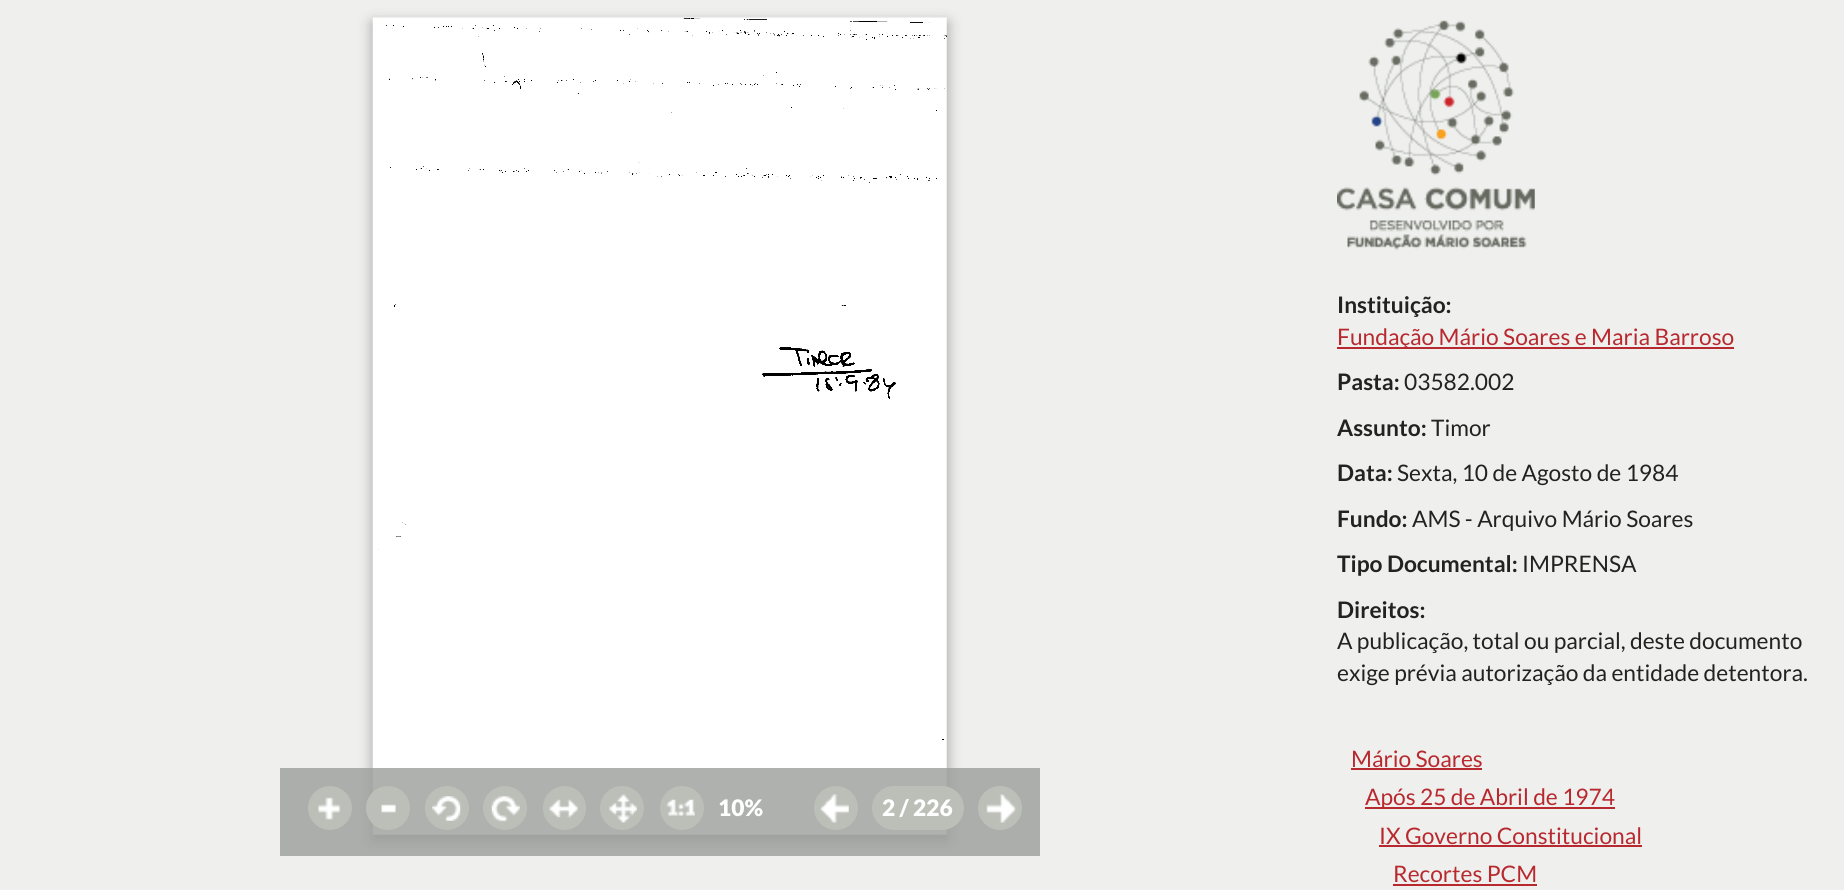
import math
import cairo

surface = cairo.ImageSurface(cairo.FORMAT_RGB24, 1844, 890)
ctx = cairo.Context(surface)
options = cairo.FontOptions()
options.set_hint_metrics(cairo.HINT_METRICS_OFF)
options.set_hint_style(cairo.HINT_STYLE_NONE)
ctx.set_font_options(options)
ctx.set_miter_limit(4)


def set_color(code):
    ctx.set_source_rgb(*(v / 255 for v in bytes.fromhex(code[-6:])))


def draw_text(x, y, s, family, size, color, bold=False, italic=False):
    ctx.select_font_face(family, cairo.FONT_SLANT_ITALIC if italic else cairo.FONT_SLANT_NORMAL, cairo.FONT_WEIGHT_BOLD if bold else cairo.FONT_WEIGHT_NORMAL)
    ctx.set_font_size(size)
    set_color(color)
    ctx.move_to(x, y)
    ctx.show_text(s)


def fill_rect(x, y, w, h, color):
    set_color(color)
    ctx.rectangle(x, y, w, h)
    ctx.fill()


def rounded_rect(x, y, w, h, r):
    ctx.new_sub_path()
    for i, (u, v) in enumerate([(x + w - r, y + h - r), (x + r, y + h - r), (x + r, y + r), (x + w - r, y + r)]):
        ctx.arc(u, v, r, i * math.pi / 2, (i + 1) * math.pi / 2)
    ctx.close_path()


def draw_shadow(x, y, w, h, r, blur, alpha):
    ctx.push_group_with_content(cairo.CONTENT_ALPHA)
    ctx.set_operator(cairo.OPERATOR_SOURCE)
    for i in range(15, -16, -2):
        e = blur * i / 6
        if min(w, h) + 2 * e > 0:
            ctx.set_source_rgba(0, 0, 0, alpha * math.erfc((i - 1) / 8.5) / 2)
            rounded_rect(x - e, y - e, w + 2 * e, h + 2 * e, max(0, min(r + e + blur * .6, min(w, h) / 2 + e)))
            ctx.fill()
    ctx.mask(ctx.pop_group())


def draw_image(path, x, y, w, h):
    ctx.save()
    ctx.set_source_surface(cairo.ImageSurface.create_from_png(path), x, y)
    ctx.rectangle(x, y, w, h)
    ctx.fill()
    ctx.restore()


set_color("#eff0ee")
ctx.paint()
set_color("#000000")
draw_shadow(373, 23, 574, 817, 0, 7, 0.35)
draw_image("assets/img1.png", 372, 17, 575, 818)
draw_image("assets/img2.png", 1337, 20, 198, 231)
draw_text(1337, 313, "Instituição:", "Lato", 22.75, "#222222", bold=True)
fill_rect(1337, 347, 397, 2, "#b8292f")
draw_text(1337, 345, "Fundação Mário Soares e Maria Barroso", "Lato", 22.75, "#b8292f")
draw_text(1337, 390, "Pasta:", "Lato", 22.75, "#222222", bold=True)
draw_text(1404, 390, "03582.002", "Lato", 22.75, "#222222")
draw_text(1337, 436, "Assunto:", "Lato", 22.75, "#222222", bold=True)
draw_text(1431, 436, "Timor", "Lato", 22.75, "#222222")
draw_text(1337, 481, "Data:", "Lato", 22.75, "#222222", bold=True)
draw_text(1397, 481, "Sexta, 10 de Agosto de 1984", "Lato", 22.75, "#222222")
draw_text(1337, 527, "Fundo:", "Lato", 22.75, "#222222", bold=True)
draw_text(1412, 527, "AMS - Arquivo Mário Soares", "Lato", 22.75, "#222222")
draw_text(1337, 572, "Tipo Documental:", "Lato", 22.75, "#222222", bold=True)
draw_text(1522, 572, "IMPRENSA", "Lato", 22.75, "#222222")
draw_text(1337, 618, "Direitos:", "Lato", 22.75, "#222222", bold=True)
draw_text(1337, 649, "A publicação, total ou parcial, deste documento", "Lato", 22.75, "#222222")
draw_text(1337, 681, "exige prévia autorização da entidade detentora.", "Lato", 22.75, "#222222")
draw_text(1351, 767, "Mário Soares", "Lato", 22.75, "#b8292f")
fill_rect(1351, 768, 131, 2, "#b8292f")
fill_rect(1365, 807, 250, 2, "#b8292f")
draw_text(1365, 805, "Após 25 de Abril de 1974", "Lato", 22.75, "#b8292f")
draw_text(1379, 844, "IX Governo Constitucional", "Lato", 22.75, "#b8292f")
fill_rect(1379, 845, 263, 2, "#b8292f")
draw_text(1393, 882, "Recortes PCM", "Lato", 22.75, "#b8292f")
fill_rect(1393, 884, 144, 2, "#b8292f")
ctx.set_source_rgba(0.608, 0.616, 0.608, 0.8)
ctx.rectangle(280, 768, 760, 88)
ctx.fill()
set_color("#bcbeb8")
ctx.arc(330, 808, 22, 0, 2 * math.pi)
ctx.fill()
draw_image("assets/img3.png", 318, 797, 23, 23)
ctx.arc(388, 808, 22, 0, 2 * math.pi)
ctx.fill()
draw_image("assets/img4.png", 381, 804, 15, 9)
ctx.arc(447, 808, 22, 0, 2 * math.pi)
ctx.fill()
draw_image("assets/img5.png", 432, 796, 29, 25)
ctx.arc(505, 808, 22, 0, 2 * math.pi)
ctx.fill()
draw_image("assets/img6.png", 491, 795, 29, 27)
rounded_rect(543, 786, 43, 44, 21.5)
ctx.fill()
draw_image("assets/img7.png", 549, 799, 29, 19)
ctx.arc(622, 808, 22, 0, 2 * math.pi)
ctx.fill()
draw_image("assets/img8.png", 609, 794, 28, 29)
ctx.arc(682, 808, 22, 0, 2 * math.pi)
ctx.fill()
draw_image("assets/img9.png", 666, 799, 29, 17)
draw_text(718, 816, "10%", "Lato Black", 22.75, "#ffffff")
set_color("#bcbeb8")
ctx.new_path()
ctx.arc(836, 808, 22, 0, 2 * math.pi)
ctx.fill()
draw_image("assets/img10.png", 820, 794, 29, 29)
rounded_rect(872, 786, 92, 44, 22)
ctx.fill()
draw_text(882, 816, "2 / 226", "Lato Black", 22.75, "#ffffff")
set_color("#bcbeb8")
ctx.new_path()
ctx.arc(1000, 808, 22, 0, 2 * math.pi)
ctx.fill()
draw_image("assets/img11.png", 986, 794, 30, 29)
surface.write_to_png("output.png")
